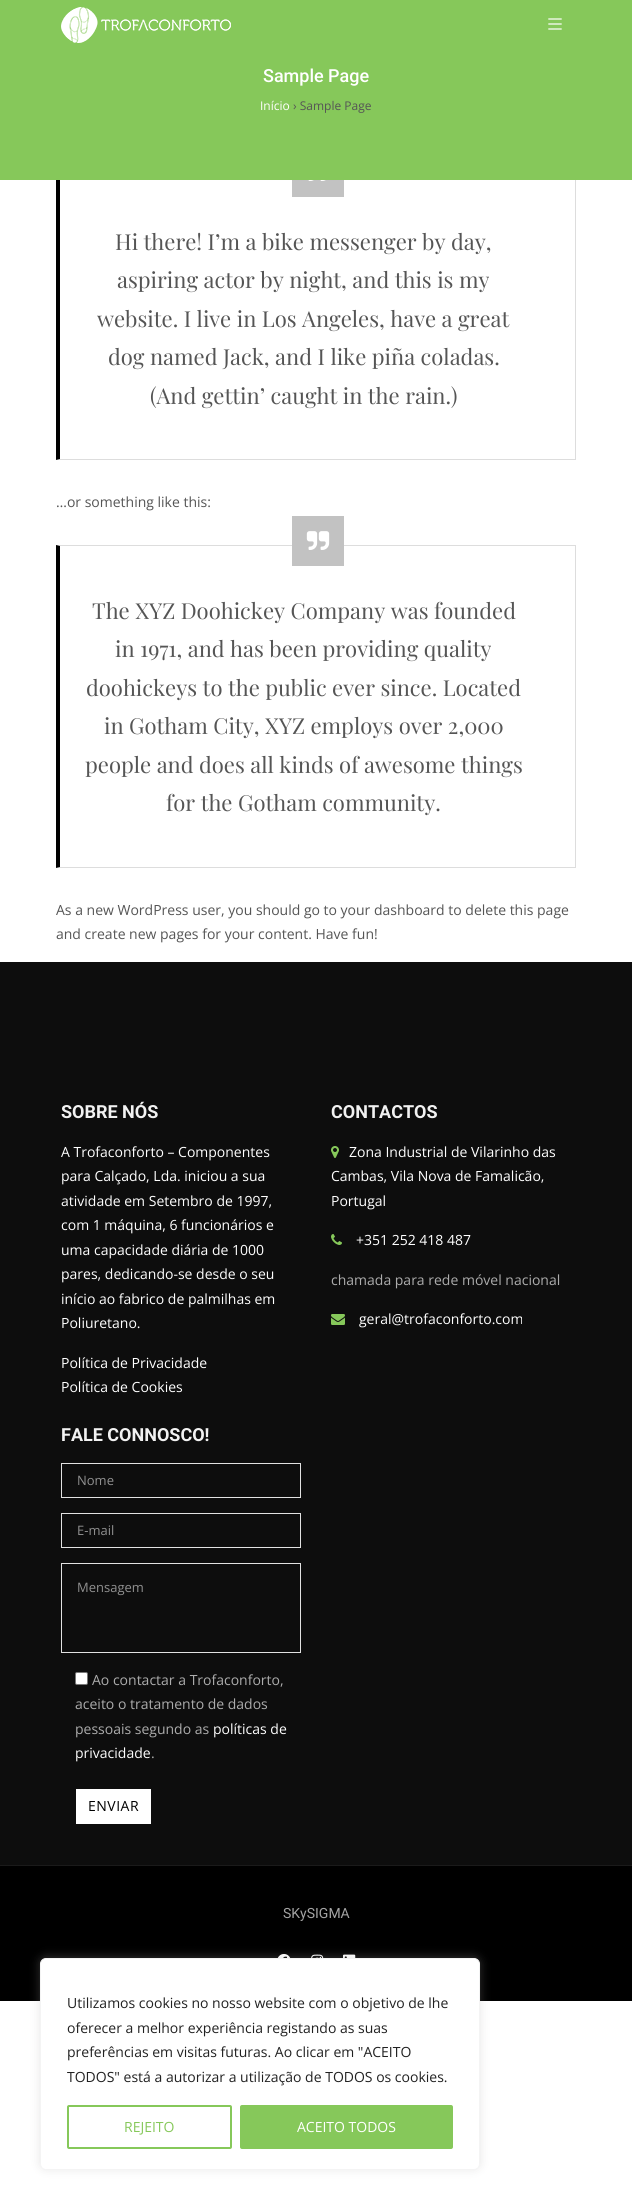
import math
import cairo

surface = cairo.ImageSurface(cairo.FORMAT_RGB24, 632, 2210)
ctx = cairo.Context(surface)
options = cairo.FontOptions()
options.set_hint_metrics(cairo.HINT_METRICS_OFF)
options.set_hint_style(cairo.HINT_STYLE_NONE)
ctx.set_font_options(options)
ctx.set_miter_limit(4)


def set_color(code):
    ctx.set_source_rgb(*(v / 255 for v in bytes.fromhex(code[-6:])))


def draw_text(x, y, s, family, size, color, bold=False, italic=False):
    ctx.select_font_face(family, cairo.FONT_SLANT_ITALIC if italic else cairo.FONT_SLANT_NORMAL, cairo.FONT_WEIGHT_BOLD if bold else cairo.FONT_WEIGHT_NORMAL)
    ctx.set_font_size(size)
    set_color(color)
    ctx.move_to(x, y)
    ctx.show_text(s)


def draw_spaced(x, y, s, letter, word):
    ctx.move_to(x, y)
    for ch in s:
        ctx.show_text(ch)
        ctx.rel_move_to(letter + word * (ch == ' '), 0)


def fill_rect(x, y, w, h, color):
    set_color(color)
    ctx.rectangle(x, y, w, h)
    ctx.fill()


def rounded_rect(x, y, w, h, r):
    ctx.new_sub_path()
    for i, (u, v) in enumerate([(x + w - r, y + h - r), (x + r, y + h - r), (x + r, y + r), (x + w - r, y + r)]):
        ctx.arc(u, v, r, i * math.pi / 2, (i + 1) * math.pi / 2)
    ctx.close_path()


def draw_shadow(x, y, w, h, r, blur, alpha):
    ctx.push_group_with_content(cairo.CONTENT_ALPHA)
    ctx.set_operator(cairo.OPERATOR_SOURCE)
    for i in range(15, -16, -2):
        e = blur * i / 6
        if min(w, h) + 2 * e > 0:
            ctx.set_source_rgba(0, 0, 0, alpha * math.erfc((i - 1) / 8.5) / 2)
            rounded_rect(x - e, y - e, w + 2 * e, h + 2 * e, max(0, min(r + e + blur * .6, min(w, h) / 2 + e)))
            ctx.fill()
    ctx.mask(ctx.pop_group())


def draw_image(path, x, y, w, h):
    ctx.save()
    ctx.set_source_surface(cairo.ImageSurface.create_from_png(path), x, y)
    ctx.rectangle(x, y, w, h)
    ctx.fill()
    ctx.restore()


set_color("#ffffff")
ctx.paint()
fill_rect(575, 176, 1, 284, "#dddddd")
ctx.new_path()
ctx.move_to(576, 460)
ctx.line_to(56, 460)
ctx.line_to(60, 459)
ctx.line_to(575, 459)
ctx.close_path()
ctx.fill()
set_color("#000000")
ctx.new_path()
ctx.move_to(56, 460)
ctx.line_to(56, 176)
ctx.line_to(60, 177)
ctx.line_to(60, 459)
ctx.close_path()
ctx.fill()
fill_rect(0, 0, 632, 180, "#86c85a")
draw_image("assets/img1.png", 61, 7, 170, 36)
draw_image("assets/img2.png", 548, 18, 14, 12)
draw_text(263, 82, "Sample Page", "Roboto Medium", 18, "#ffffff")
draw_text(260, 110, "Início", "Open Sans", 12, "#ffffff")
draw_text(293, 110, "› Sample Page", "Open Sans", 12, "#555555")
fill_rect(292, 180, 52, 17, "#c2c2c2")
draw_image("assets/img3.png", 308, 180, 18, 1)
draw_text(115, 250, "Hi there! I’m a bike messenger by day,", "Playfair Display", 22, "#555555")
draw_text(117, 288, "aspiring actor by night, and this is my", "Playfair Display", 22, "#555555")
draw_text(97, 327, "website. I live in Los Angeles, have a great", "Playfair Display", 22, "#555555")
draw_text(108, 365, "dog named Jack, and I like piña coladas.", "Playfair Display", 22, "#555555")
draw_text(150, 404, "(And gettin’ caught in the rain.)", "Playfair Display", 22, "#555555")
draw_text(56, 507, "…or something like this:", "Open Sans", 14, "#555555")
set_color("#dddddd")
ctx.new_path()
ctx.move_to(56, 545)
ctx.line_to(576, 545)
ctx.line_to(575, 546)
ctx.line_to(60, 546)
ctx.close_path()
ctx.fill()
fill_rect(575, 545, 1, 323, "#dddddd")
ctx.new_path()
ctx.move_to(576, 868)
ctx.line_to(56, 868)
ctx.line_to(60, 867)
ctx.line_to(575, 867)
ctx.close_path()
ctx.fill()
set_color("#000000")
ctx.new_path()
ctx.move_to(56, 868)
ctx.line_to(56, 545)
ctx.line_to(60, 546)
ctx.line_to(60, 867)
ctx.close_path()
ctx.fill()
fill_rect(292, 516, 52, 50, "#c2c2c2")
draw_image("assets/img4.png", 306, 531, 24, 19)
draw_text(92, 619, "The XYZ Doohickey Company was founded", "Playfair Display", 22, "#555555")
draw_text(115, 657, "in 1971, and has been providing quality", "Playfair Display", 22, "#555555")
draw_text(86, 696, "doohickeys to the public ever since. Located", "Playfair Display", 22, "#555555")
draw_text(104, 734, "in Gotham City, XYZ employs over 2,000", "Playfair Display", 22, "#555555")
draw_text(85, 773, "people and does all kinds of awesome things", "Playfair Display", 22, "#555555")
draw_text(166, 811, "for the Gotham community.", "Playfair Display", 22, "#555555")
draw_text(56, 915, "As a new WordPress user, you should go to your dashboard to delete this page", "Open Sans", 14, "#555555")
draw_text(56, 939, "and create new pages for your content. Have fun!", "Open Sans", 14, "#555555")
fill_rect(0, 962, 632, 903, "#0d0d0d")
draw_text(61, 1118, "SOBRE NÓS", "Roboto", 18, "#f2f2f2", bold=True)
draw_text(61, 1157, "A Trofaconforto – Componentes", "Open Sans", 14, "#ffffff")
draw_text(61, 1181, "para Calçado, Lda. iniciou a sua", "Open Sans", 14, "#ffffff")
draw_text(61, 1206, "atividade em Setembro de 1997,", "Open Sans", 14, "#ffffff")
draw_text(61, 1230, "com 1 máquina, 6 funcionários e", "Open Sans", 14, "#ffffff")
draw_text(61, 1255, "uma capacidade diária de 1000", "Open Sans", 14, "#ffffff")
draw_text(61, 1279, "pares, dedicando-se desde o seu", "Open Sans", 14, "#ffffff")
draw_text(61, 1304, "início ao fabrico de palmilhas em", "Open Sans", 14, "#ffffff")
draw_text(61, 1328, "Poliuretano.", "Open Sans", 14, "#ffffff")
draw_text(61, 1368, "Política de Privacidade", "Open Sans", 14, "#ffffff")
draw_text(61, 1392, "Política de Cookies", "Open Sans", 14, "#ffffff")
draw_text(331, 1118, "CONTACTOS", "Roboto", 18, "#f2f2f2", bold=True)
draw_image("assets/img5.png", 331, 1146, 8, 12)
draw_text(349, 1157, "Zona Industrial de Vilarinho das", "Open Sans", 14, "#ffffff")
draw_text(331, 1181, "Cambas, Vila Nova de Famalicão,", "Open Sans", 14, "#ffffff")
draw_text(331, 1206, "Portugal", "Open Sans", 14, "#ffffff")
draw_image("assets/img6.png", 331, 1234, 11, 11)
draw_text(356, 1245, "+351 252 418 487", "Open Sans", 14, "#ffffff")
draw_text(331, 1285, "chamada para rede móvel nacional", "Open Sans", 14, "#acacac")
draw_image("assets/img7.png", 331, 1314, 14, 11)
draw_text(359, 1324, "geral@trofaconforto.com", "Open Sans", 14, "#ffffff")
draw_text(61, 1441, "FALE CONNOSCO!", "Roboto", 18, "#f2f2f2", bold=True)
ctx.rectangle(61.5, 1463.5, 239, 34)
set_color("#e1e1e1")
ctx.set_line_width(1)
ctx.stroke()
draw_text(77, 1485, "Nome", "Open Sans", 13, "#909090")
ctx.rectangle(61.5, 1513.5, 239, 34)
set_color("#e1e1e1")
ctx.stroke()
draw_text(77, 1535, "E-mail", "Open Sans", 13, "#909090")
ctx.rectangle(61.5, 1563.5, 239, 89)
set_color("#e1e1e1")
ctx.stroke()
draw_text(77, 1592, "Mensagem", "Open Sans", 13, "#909090")
set_color("#ffffff")
rounded_rect(75.5, 1672.5, 12, 12, 1.5)
ctx.fill_preserve()
set_color("#767676")
ctx.stroke()
draw_text(92, 1685, "Ao contactar a Trofaconforto,", "Open Sans", 14, "#acacac")
draw_text(75, 1709, "aceito o tratamento de dados", "Open Sans", 14, "#acacac")
draw_text(75, 1734, "pessoais segundo as", "Open Sans", 14, "#acacac")
draw_text(213, 1734, "políticas de", "Open Sans", 14, "#ffffff")
draw_text(75, 1758, "privacidade", "Open Sans", 14, "#ffffff")
draw_text(151, 1758, ".", "Open Sans", 14, "#acacac")
fill_rect(76, 1789, 75, 35, "#ffffff")
set_color("#000000")
draw_spaced(88, 1811, "ENVIAR", 0.5, 0)
fill_rect(0, 1866, 632, 135, "#000000")
fill_rect(0, 1865, 632, 1, "#1a1a1a")
draw_text(283, 1918, "SKySIGMA", "Roboto", 14, "#a4a4a4")
draw_image("assets/img8.png", 277, 1954, 14, 4)
draw_image("assets/img9.png", 311, 1954, 13, 4)
draw_image("assets/img10.png", 343, 1954, 13, 4)
set_color("#acabab")
draw_shadow(40, 1957, 440, 212, 6, 5, 0.3)
set_color("#ffffff")
rounded_rect(40.5, 1958.5, 439, 211, 5.5)
ctx.fill_preserve()
set_color("#f4f4f4")
ctx.stroke()
draw_text(67, 2008, "Utilizamos cookies no nosso website com o objetivo de lhe", "Open Sans", 14, "#212121")
draw_text(67, 2033, "oferecer a melhor experiência registando as suas", "Open Sans", 14, "#212121")
draw_text(67, 2057, "preferências em visitas futuras. Ao clicar em \"ACEITO", "Open Sans", 14, "#212121")
draw_text(67, 2082, "TODOS\" está a autorizar a utilização de TODOS os cookies.", "Open Sans", 14, "#212121")
rounded_rect(68, 2106, 163, 42, 1)
set_color("#86c85a")
ctx.set_line_width(2)
ctx.stroke()
draw_text(124, 2132, "REJEITO", "Open Sans", 14, "#86c85a")
rounded_rect(241, 2106, 211, 42, 1)
ctx.fill_preserve()
ctx.stroke()
draw_text(297, 2132, "ACEITO TODOS", "Open Sans", 14, "#ffffff")
surface.write_to_png("output.png")
